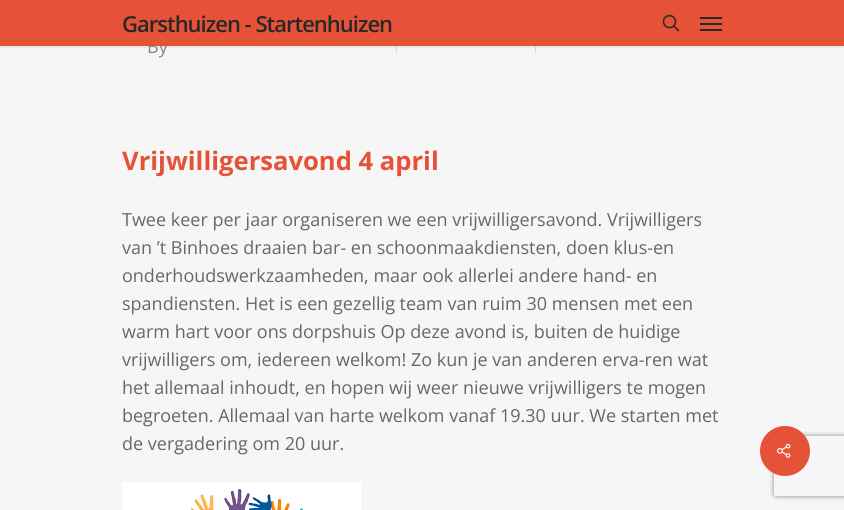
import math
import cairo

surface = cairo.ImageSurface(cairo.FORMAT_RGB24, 844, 510)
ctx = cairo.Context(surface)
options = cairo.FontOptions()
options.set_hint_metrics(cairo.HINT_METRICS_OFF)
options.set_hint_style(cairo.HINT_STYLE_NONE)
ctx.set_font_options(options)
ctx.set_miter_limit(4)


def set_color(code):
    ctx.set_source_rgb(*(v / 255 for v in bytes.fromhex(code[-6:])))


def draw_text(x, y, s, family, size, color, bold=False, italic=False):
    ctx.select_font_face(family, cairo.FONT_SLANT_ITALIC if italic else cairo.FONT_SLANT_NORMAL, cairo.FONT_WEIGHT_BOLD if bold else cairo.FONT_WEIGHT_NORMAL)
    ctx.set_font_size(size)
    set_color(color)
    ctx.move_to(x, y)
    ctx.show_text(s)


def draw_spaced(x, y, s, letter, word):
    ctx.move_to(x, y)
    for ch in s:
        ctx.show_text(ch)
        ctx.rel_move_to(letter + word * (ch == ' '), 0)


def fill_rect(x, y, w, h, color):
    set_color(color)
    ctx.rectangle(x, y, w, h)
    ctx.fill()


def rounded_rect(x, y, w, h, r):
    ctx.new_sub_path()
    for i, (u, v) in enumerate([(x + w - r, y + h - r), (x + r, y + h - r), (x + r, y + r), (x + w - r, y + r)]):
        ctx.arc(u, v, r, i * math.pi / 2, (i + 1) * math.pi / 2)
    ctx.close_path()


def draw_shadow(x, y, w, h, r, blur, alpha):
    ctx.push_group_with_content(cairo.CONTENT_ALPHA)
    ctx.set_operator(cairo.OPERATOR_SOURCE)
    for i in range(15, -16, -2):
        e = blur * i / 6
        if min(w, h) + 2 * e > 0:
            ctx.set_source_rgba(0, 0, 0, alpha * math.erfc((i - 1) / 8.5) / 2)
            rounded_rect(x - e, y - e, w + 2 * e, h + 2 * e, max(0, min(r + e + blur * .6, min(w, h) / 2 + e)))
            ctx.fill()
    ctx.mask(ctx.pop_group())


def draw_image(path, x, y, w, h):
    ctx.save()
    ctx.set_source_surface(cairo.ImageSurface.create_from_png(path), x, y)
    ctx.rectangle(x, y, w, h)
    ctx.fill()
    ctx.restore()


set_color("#f6f6f6")
ctx.paint()
fill_rect(396, 39, 1, 14, "#dddddd")
fill_rect(535, 39, 1, 14, "#dddddd")
set_color("#000000")
draw_shadow(0, 0, 844, 46, 0, 1.5, 0.22)
draw_text(147, 53, "By", "Open Sans", 18, "#878787")
fill_rect(0, 0, 844, 46, "#e55238")
ctx.select_font_face("Open Sans SemiBold")
ctx.set_font_size(22)
set_color("#282828")
draw_spaced(122, 32, "Garsthuizen - Startenhuizen", -1, 0)
draw_image("assets/img1.png", 662, 14, 18, 18)
fill_rect(700, 17, 22, 2, "#282828")
fill_rect(700, 29, 22, 2, "#282828")
fill_rect(700, 23, 22, 2, "#282828")
draw_text(122, 170, "Vrijwilligersavond 4 april", "Open Sans", 25.6, "#e55238", bold=True)
draw_text(122, 226, "Twee keer per jaar organiseren we een vrijwilligersavond. Vrijwilligers", "Open Sans", 18, "#676767")
draw_text(122, 254, "van ’t Binhoes draaien bar- en schoonmaakdiensten, doen klus-en", "Open Sans", 18, "#676767")
draw_text(122, 282, "onderhoudswerkzaamheden, maar ook allerlei andere hand- en", "Open Sans", 18, "#676767")
draw_text(122, 310, "spandiensten. Het is een gezellig team van ruim 30 mensen met een", "Open Sans", 18, "#676767")
draw_text(122, 338, "warm hart voor ons dorpshuis Op deze avond is, buiten de huidige", "Open Sans", 18, "#676767")
draw_text(122, 366, "vrijwilligers om, iedereen welkom! Zo kun je van anderen erva-ren wat", "Open Sans", 18, "#676767")
draw_text(122, 394, "het allemaal inhoudt, en hopen wij weer nieuwe vrijwilligers te mogen", "Open Sans", 18, "#676767")
draw_text(122, 422, "begroeten. Allemaal van harte welkom vanaf 19.30 uur. We starten met", "Open Sans", 18, "#676767")
draw_text(122, 450, "de vergadering om 20 uur.", "Open Sans", 18, "#676767")
draw_image("assets/img2.png", 122, 482, 239, 28)
ctx.save()
ctx.set_fill_rule(cairo.FILL_RULE_EVEN_ODD)
ctx.new_path()
ctx.move_to(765, 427)
ctx.line_to(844, 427)
ctx.line_to(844, 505)
ctx.line_to(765, 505)
ctx.close_path()
ctx.move_to(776, 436)
ctx.line_to(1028, 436)
ctx.curve_to(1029, 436, 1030, 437, 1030, 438)
ctx.line_to(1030, 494)
ctx.curve_to(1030, 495, 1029, 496, 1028, 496)
ctx.line_to(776, 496)
ctx.curve_to(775, 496, 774, 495, 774, 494)
ctx.line_to(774, 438)
ctx.curve_to(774, 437, 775, 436, 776, 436)
ctx.close_path()
ctx.clip()
set_color("#808080")
draw_shadow(774, 436, 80, 60, 2, 2.5, 1)
ctx.restore()
set_color("#e55238")
ctx.arc(785, 451, 25, 0, 2 * math.pi)
ctx.fill()
draw_image("assets/img3.png", 777, 443, 14, 15)
surface.write_to_png("output.png")
